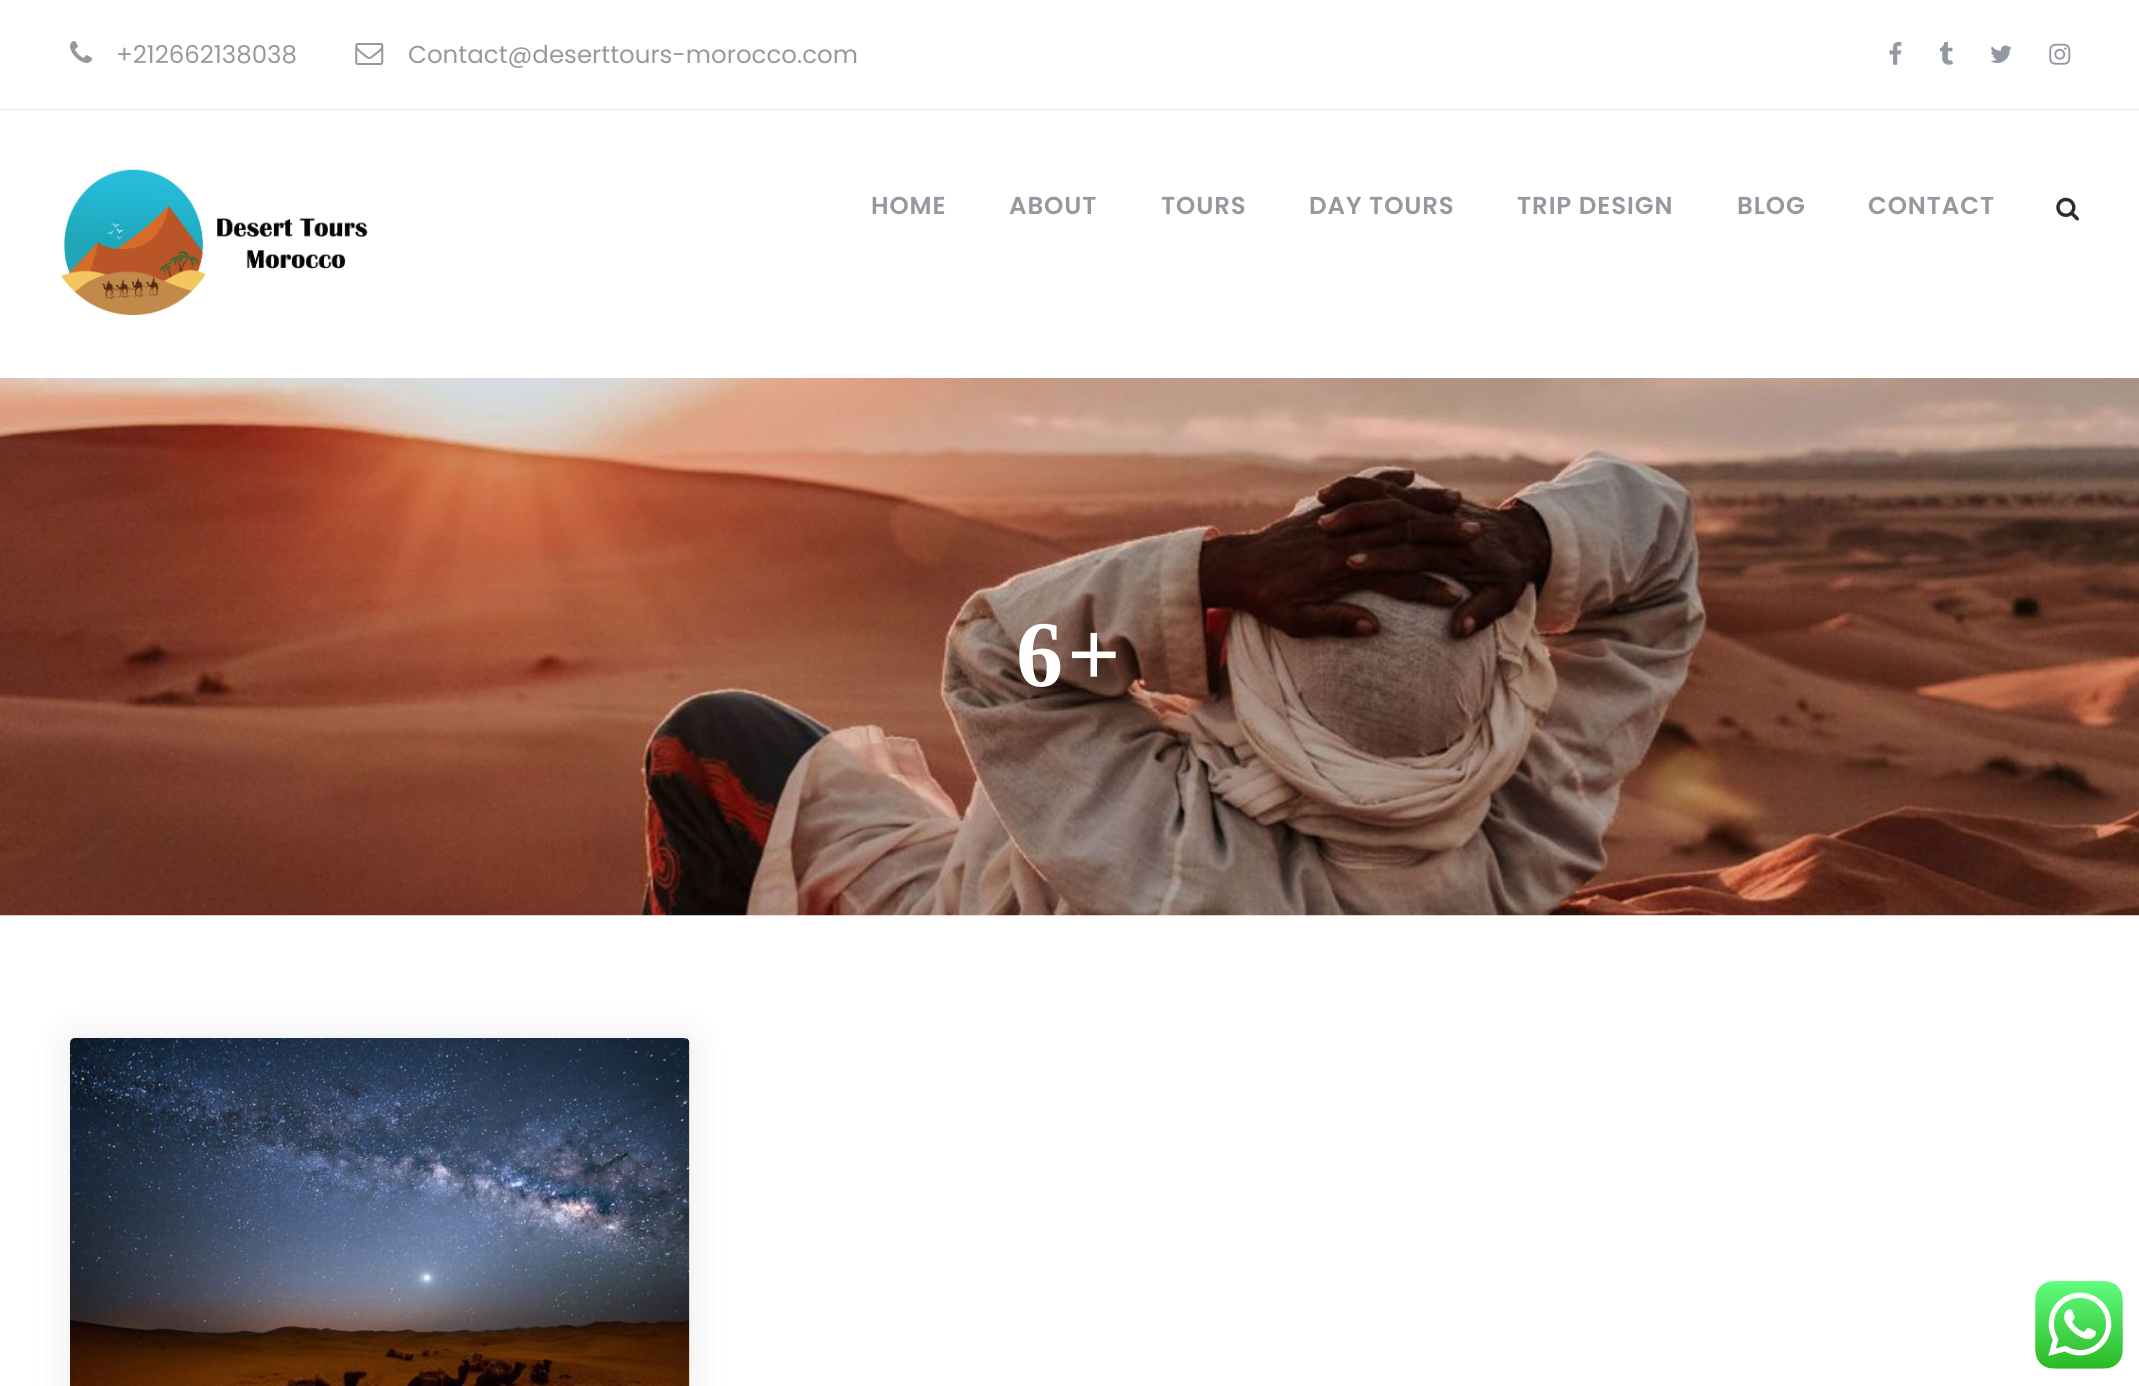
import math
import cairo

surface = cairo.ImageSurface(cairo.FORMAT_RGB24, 2139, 1386)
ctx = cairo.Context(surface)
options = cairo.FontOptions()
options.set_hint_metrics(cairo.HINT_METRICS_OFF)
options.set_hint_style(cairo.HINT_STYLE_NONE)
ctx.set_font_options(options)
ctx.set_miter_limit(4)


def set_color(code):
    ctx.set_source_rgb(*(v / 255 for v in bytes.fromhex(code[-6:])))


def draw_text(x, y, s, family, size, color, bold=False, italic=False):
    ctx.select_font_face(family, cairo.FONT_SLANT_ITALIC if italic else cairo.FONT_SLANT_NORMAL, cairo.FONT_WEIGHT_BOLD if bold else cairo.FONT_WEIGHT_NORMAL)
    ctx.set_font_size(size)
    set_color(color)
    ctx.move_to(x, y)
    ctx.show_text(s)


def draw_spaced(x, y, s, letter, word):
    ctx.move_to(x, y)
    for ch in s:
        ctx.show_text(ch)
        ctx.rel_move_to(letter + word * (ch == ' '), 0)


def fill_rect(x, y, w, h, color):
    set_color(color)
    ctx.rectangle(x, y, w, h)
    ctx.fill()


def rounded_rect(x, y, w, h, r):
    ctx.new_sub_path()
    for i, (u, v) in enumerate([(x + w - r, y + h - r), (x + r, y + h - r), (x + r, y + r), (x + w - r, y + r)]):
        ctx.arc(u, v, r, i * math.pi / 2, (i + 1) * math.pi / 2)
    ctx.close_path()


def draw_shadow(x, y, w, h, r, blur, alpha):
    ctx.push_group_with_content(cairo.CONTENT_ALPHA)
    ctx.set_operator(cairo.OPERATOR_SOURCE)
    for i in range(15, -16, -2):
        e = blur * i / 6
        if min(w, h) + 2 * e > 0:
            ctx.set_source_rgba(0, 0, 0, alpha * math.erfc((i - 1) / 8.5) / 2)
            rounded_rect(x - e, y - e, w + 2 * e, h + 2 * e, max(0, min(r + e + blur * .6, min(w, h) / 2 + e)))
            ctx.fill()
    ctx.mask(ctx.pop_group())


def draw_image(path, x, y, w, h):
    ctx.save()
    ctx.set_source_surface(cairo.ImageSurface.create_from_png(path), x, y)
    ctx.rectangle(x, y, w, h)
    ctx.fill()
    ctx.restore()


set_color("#ffffff")
ctx.paint()
fill_rect(0, 109, 2139, 1, "#e9e9e9")
draw_image("assets/img1.png", 70, 41, 22, 22)
draw_text(116, 63, "+212662138038", "Poppins", 24.5, "#999999")
draw_image("assets/img2.png", 355, 43, 29, 22)
draw_text(408, 63, "Contact@deserttours-morocco.com", "Poppins", 24.5, "#999999")
draw_image("assets/img3.png", 1889, 42, 13, 23)
draw_image("assets/img4.png", 1939, 42, 14, 23)
draw_image("assets/img5.png", 1990, 45, 22, 18)
draw_image("assets/img6.png", 2049, 43, 22, 22)
draw_image("assets/img7.png", 61, 169, 307, 146)
ctx.select_font_face("Poppins SemiBold")
set_color("#94999f")
draw_spaced(871, 214, "HOME", 0.9, 0)
draw_spaced(1009, 214, "ABOUT", 0.9, 0)
draw_spaced(1161, 214, "TOURS", 0.9, 0)
draw_spaced(1309, 214, "DAY TOURS", 0.9, 0)
draw_spaced(1517, 214, "TRIP DESIGN", 0.9, 0)
draw_spaced(1737, 214, "BLOG", 0.9, 0)
draw_spaced(1868, 214, "CONTACT", 0.9, 0)
draw_image("assets/img8.png", 2056, 197, 23, 24)
draw_image("assets/img9.png", 0, 378, 2139, 538)
ctx.select_font_face("Liberation Serif", cairo.FONT_SLANT_NORMAL, cairo.FONT_WEIGHT_BOLD)
ctx.set_font_size(94)
set_color("#ffffff")
draw_spaced(1016, 686, "6+", 4, 0)
set_color("#0a0a0a")
draw_shadow(70, 1038, 620, 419, 5, 22, 0.08)
draw_image("assets/img10.png", 70, 1038, 620, 348)
draw_image("assets/img11.png", 2035, 1281, 88, 88)
surface.write_to_png("output.png")
